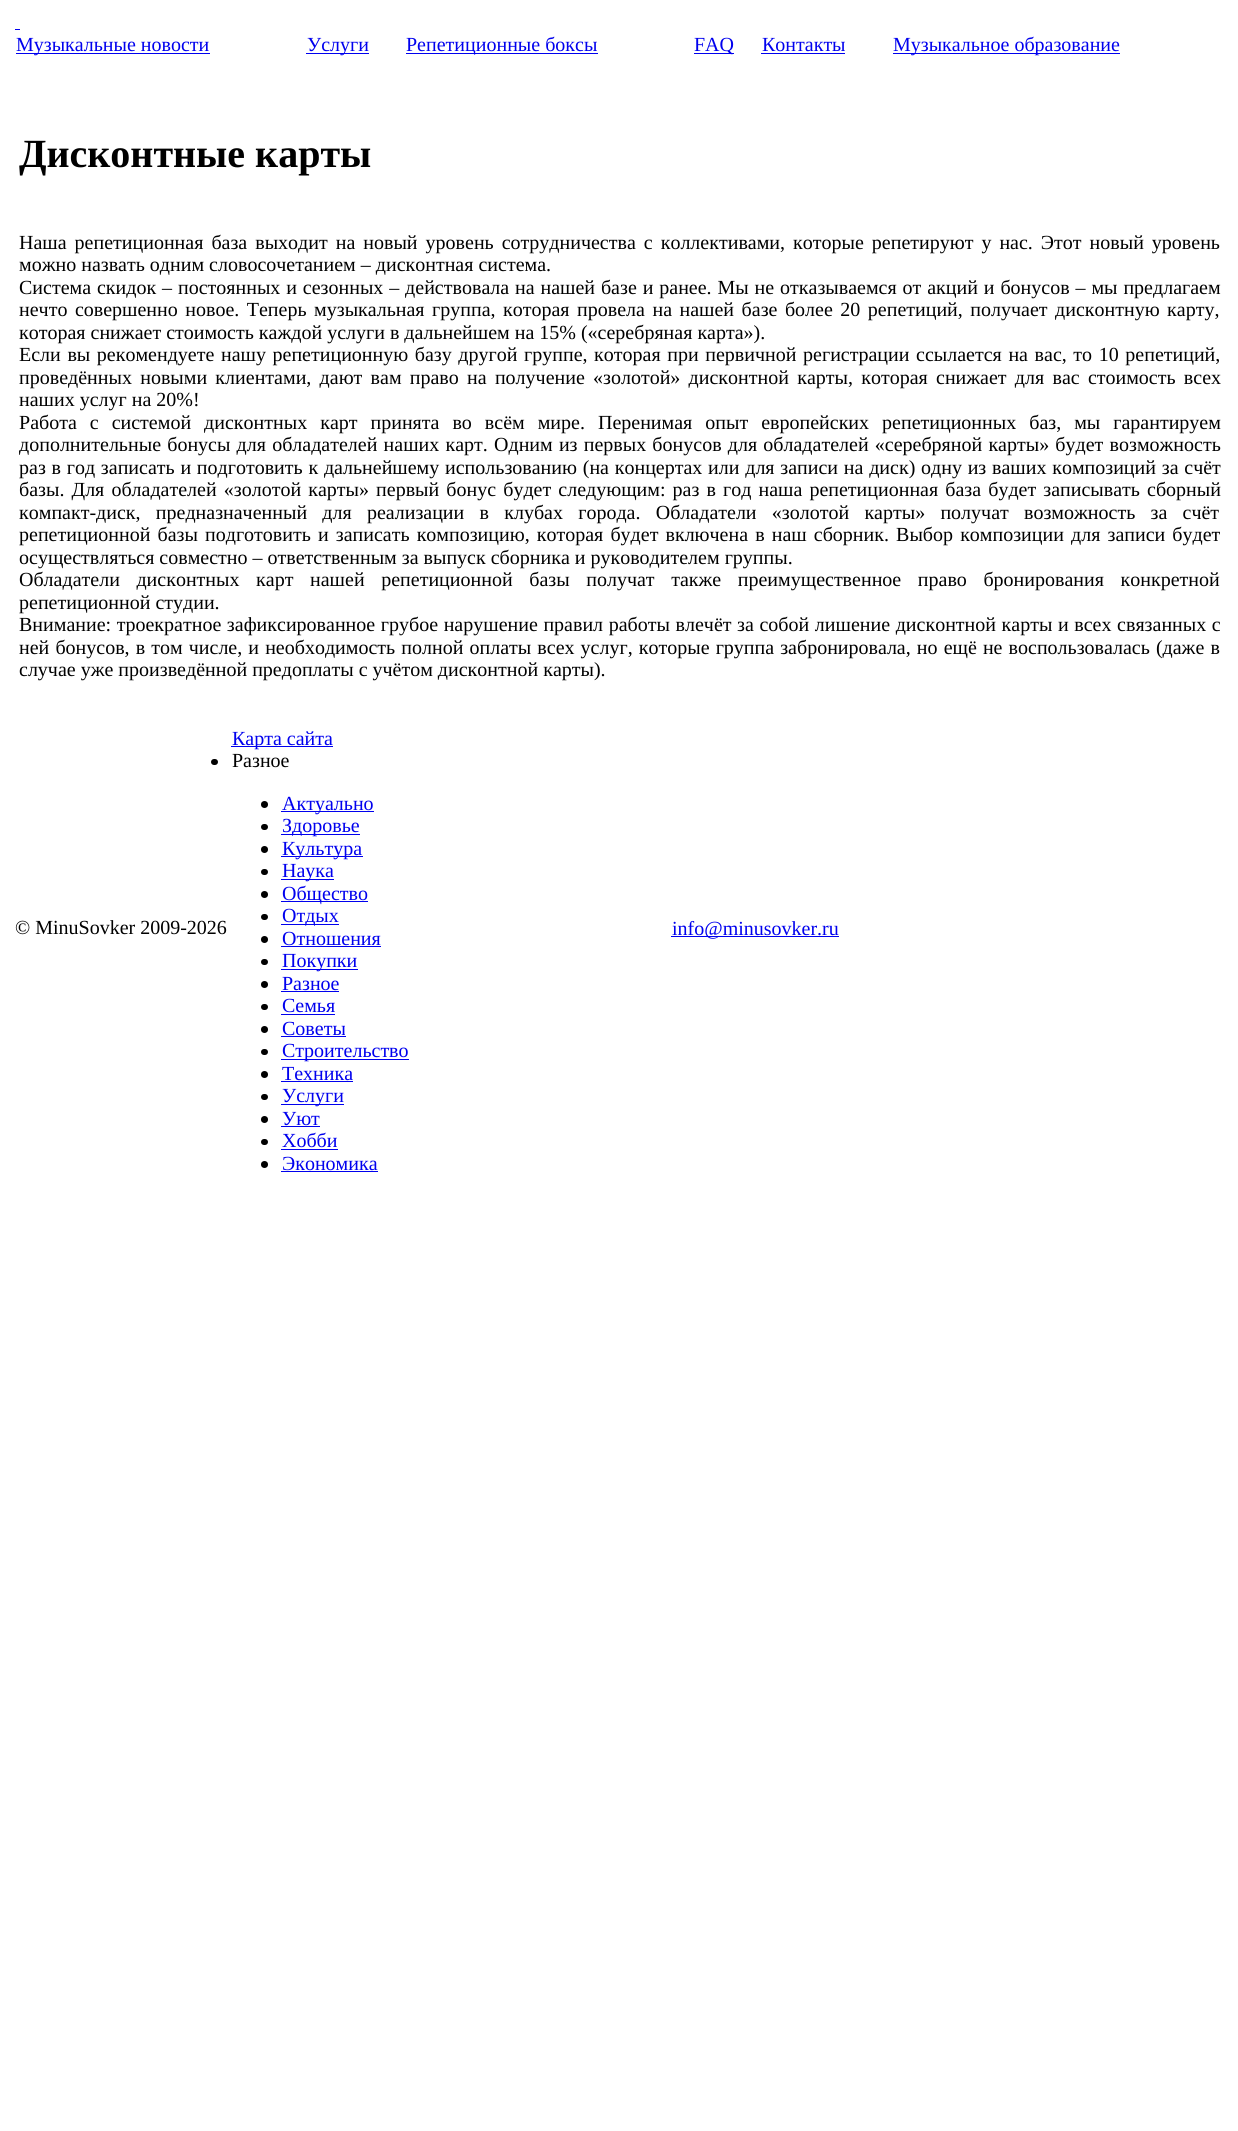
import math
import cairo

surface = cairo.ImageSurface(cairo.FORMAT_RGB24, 1238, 2131)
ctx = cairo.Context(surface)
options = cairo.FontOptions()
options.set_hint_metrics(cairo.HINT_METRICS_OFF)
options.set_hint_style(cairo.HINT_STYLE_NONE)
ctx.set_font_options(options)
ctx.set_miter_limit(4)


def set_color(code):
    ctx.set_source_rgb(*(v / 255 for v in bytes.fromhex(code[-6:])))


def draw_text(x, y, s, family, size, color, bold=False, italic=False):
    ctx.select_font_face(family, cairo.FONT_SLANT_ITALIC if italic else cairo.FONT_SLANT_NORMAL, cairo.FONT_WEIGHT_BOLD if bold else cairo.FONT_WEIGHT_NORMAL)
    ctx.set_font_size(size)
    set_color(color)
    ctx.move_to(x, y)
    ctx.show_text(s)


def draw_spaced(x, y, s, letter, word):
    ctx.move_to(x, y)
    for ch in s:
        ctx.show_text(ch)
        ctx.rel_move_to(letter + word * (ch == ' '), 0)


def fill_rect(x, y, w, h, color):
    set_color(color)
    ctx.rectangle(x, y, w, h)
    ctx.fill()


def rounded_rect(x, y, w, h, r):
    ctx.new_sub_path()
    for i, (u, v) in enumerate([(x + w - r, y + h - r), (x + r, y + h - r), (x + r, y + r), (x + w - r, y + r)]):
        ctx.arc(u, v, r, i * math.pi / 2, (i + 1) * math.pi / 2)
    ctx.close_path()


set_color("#ffffff")
ctx.paint()
fill_rect(15, 29, 5, 1, "#0000ee")
fill_rect(16, 53, 194, 1, "#0000ee")
draw_text(16, 51, "Музыкальные новости", "Liberation Serif", 20, "#0000ee")
fill_rect(306, 53, 63, 1, "#0000ee")
draw_text(307, 51, "Услуги", "Liberation Serif", 20, "#0000ee")
fill_rect(406, 53, 192, 1, "#0000ee")
draw_text(406, 51, "Репетиционные боксы", "Liberation Serif", 20, "#0000ee")
fill_rect(694, 53, 40, 1, "#0000ee")
draw_text(694, 51, "FAQ", "Liberation Serif", 20, "#0000ee")
draw_text(762, 51, "Контакты", "Liberation Serif", 20, "#0000ee")
fill_rect(761, 53, 84, 1, "#0000ee")
fill_rect(893, 53, 227, 1, "#0000ee")
draw_text(893, 51, "Музыкальное образование", "Liberation Serif", 20, "#0000ee")
draw_text(19, 167, "Дисконтные карты", "Liberation Serif", 40, "#000000", bold=True)
ctx.select_font_face("Liberation Serif")
ctx.set_font_size(20)
draw_spaced(19, 249, "Наша репетиционная база выходит на новый уровень сотрудничества с коллективами, которые репетируют у нас. Этот новый уровень", 0, 3)
draw_text(19, 271, "можно назвать одним словосочетанием – дисконтная система.", "Liberation Serif", 20, "#000000")
draw_spaced(19, 294, "Система скидок – постоянных и сезонных – действовала на нашей базе и ранее. Мы не отказываемся от акций и бонусов – мы предлагаем", 0, 0.9)
draw_spaced(19, 316, "нечто совершенно новое. Теперь музыкальная группа, которая провела на нашей базе более 20 репетиций, получает дисконтную карту,", 0, 2.5)
draw_text(19, 339, "которая снижает стоимость каждой услуги в дальнейшем на 15% («серебряная карта»).", "Liberation Serif", 20, "#000000")
draw_spaced(19, 361, "Если вы рекомендуете нашу репетиционную базу другой группе, которая при первичной регистрации ссылается на вас, то 10 репетиций,", 0, 1.6)
draw_spaced(19, 384, "проведённых новыми клиентами, дают вам право на получение «золотой» дисконтной карты, которая снижает для вас стоимость всех", 0, 3.25)
draw_text(19, 406, "наших услуг на 20%!", "Liberation Serif", 20, "#000000")
draw_spaced(19, 429, "Работа с системой дисконтных карт принята во всём мире. Перенимая опыт европейских репетиционных баз, мы гарантируем", 0, 8)
draw_spaced(19, 451, "дополнительные бонусы для обладателей наших карт. Одним из первых бонусов для обладателей «серебряной карты» будет возможность", 0, 1.2)
draw_spaced(19, 474, "раз в год записать и подготовить к дальнейшему использованию (на концертах или для записи на диск) одну из ваших композиций за счёт", 0, 0.75)
draw_spaced(19, 496, "базы. Для обладателей «золотой карты» первый бонус будет следующим: раз в год наша репетиционная база будет записывать сборный", 0, 2.1)
draw_spaced(19, 519, "компакт-диск, предназначенный для реализации в клубах города. Обладатели «золотой карты» получат возможность за счёт", 0, 10.25)
draw_spaced(19, 541, "репетиционной базы подготовить и записать композицию, которая будет включена в наш сборник. Выбор композиции для записи будет", 0, 2.1)
draw_text(19, 564, "осуществляться совместно – ответственным за выпуск сборника и руководителем группы.", "Liberation Serif", 20, "#000000")
draw_spaced(19, 586, "Обладатели дисконтных карт нашей репетиционной базы получат также преимущественное право бронирования конкретной", 0, 11.6)
draw_text(19, 609, "репетиционной студии.", "Liberation Serif", 20, "#000000")
draw_spaced(19, 631, "Внимание: троекратное зафиксированное грубое нарушение правил работы влечёт за собой лишение дисконтной карты и всех связанных с", 0, 0.6)
draw_spaced(19, 654, "ней бонусов, в том числе, и необходимость полной оплаты всех услуг, которые группа забронировала, но ещё не воспользовалась (даже в", 0, 1.1)
draw_text(19, 676, "случае уже произведённой предоплаты с учётом дисконтной карты).", "Liberation Serif", 20, "#000000")
draw_text(15, 934, "© MinuSovker 2009-2026", "Liberation Serif", 20, "#000000")
fill_rect(231, 746, 102, 1, "#0000ee")
draw_text(232, 745, "Карта сайта", "Liberation Serif", 20, "#0000ee")
set_color("#000000")
rounded_rect(211, 759, 7, 6, 3)
ctx.fill()
draw_text(232, 767, "Разное", "Liberation Serif", 20, "#000000")
ctx.new_path()
ctx.arc(264.5, 804.5, 3.5, 0, 2 * math.pi)
ctx.fill()
fill_rect(281, 811, 93, 1, "#0000ee")
draw_text(282, 810, "Актуально", "Liberation Serif", 20, "#0000ee")
set_color("#000000")
rounded_rect(261, 824, 7, 6, 3)
ctx.fill()
fill_rect(281, 834, 79, 1, "#0000ee")
draw_text(282, 832, "Здоровье", "Liberation Serif", 20, "#0000ee")
set_color("#000000")
ctx.new_path()
ctx.arc(264.5, 849.5, 3.5, 0, 2 * math.pi)
ctx.fill()
fill_rect(281, 856, 82, 1, "#0000ee")
draw_text(282, 855, "Культура", "Liberation Serif", 20, "#0000ee")
set_color("#000000")
rounded_rect(261, 869, 7, 6, 3)
ctx.fill()
fill_rect(281, 879, 53, 1, "#0000ee")
draw_text(282, 877, "Наука", "Liberation Serif", 20, "#0000ee")
set_color("#000000")
ctx.new_path()
ctx.arc(264.5, 894.5, 3.5, 0, 2 * math.pi)
ctx.fill()
fill_rect(281, 901, 87, 1, "#0000ee")
draw_text(282, 900, "Общество", "Liberation Serif", 20, "#0000ee")
set_color("#000000")
rounded_rect(261, 914, 7, 6, 3)
ctx.fill()
fill_rect(281, 924, 58, 1, "#0000ee")
draw_text(282, 922, "Отдых", "Liberation Serif", 20, "#0000ee")
set_color("#000000")
ctx.new_path()
ctx.arc(264.5, 939.5, 3.5, 0, 2 * math.pi)
ctx.fill()
draw_text(282, 945, "Отношения", "Liberation Serif", 20, "#0000ee")
fill_rect(281, 946, 100, 1, "#0000ee")
set_color("#000000")
rounded_rect(261, 959, 7, 6, 3)
ctx.fill()
fill_rect(281, 969, 77, 1, "#0000ee")
draw_text(282, 967, "Покупки", "Liberation Serif", 20, "#0000ee")
set_color("#000000")
ctx.new_path()
ctx.arc(264.5, 984.5, 3.5, 0, 2 * math.pi)
ctx.fill()
draw_text(282, 990, "Разное", "Liberation Serif", 20, "#0000ee")
fill_rect(281, 991, 58, 1, "#0000ee")
set_color("#000000")
rounded_rect(261, 1004, 7, 6, 3)
ctx.fill()
draw_text(282, 1012, "Семья", "Liberation Serif", 20, "#0000ee")
fill_rect(281, 1014, 54, 1, "#0000ee")
set_color("#000000")
ctx.new_path()
ctx.arc(264.5, 1029.5, 3.5, 0, 2 * math.pi)
ctx.fill()
draw_text(282, 1035, "Советы", "Liberation Serif", 20, "#0000ee")
fill_rect(281, 1036, 65, 1, "#0000ee")
set_color("#000000")
rounded_rect(261, 1049, 7, 6, 3)
ctx.fill()
fill_rect(281, 1059, 128, 1, "#0000ee")
draw_text(282, 1057, "Строительство", "Liberation Serif", 20, "#0000ee")
set_color("#000000")
ctx.new_path()
ctx.arc(264.5, 1074.5, 3.5, 0, 2 * math.pi)
ctx.fill()
draw_text(282, 1080, "Техника", "Liberation Serif", 20, "#0000ee")
fill_rect(281, 1081, 72, 1, "#0000ee")
set_color("#000000")
rounded_rect(261, 1094, 7, 6, 3)
ctx.fill()
fill_rect(281, 1104, 63, 1, "#0000ee")
draw_text(282, 1102, "Услуги", "Liberation Serif", 20, "#0000ee")
set_color("#000000")
ctx.new_path()
ctx.arc(264.5, 1119.5, 3.5, 0, 2 * math.pi)
ctx.fill()
draw_text(282, 1125, "Уют", "Liberation Serif", 20, "#0000ee")
fill_rect(281, 1126, 39, 1, "#0000ee")
set_color("#000000")
rounded_rect(261, 1139, 7, 6, 3)
ctx.fill()
draw_text(282, 1147, "Хобби", "Liberation Serif", 20, "#0000ee")
fill_rect(281, 1149, 57, 1, "#0000ee")
set_color("#000000")
ctx.new_path()
ctx.arc(264.5, 1164.5, 3.5, 0, 2 * math.pi)
ctx.fill()
draw_text(282, 1170, "Экономика", "Liberation Serif", 20, "#0000ee")
fill_rect(281, 1171, 97, 1, "#0000ee")
fill_rect(671, 936, 168, 1, "#0000ee")
draw_text(672, 935, "info@minusovker.ru", "Liberation Serif", 20, "#0000ee")
surface.write_to_png("output.png")
